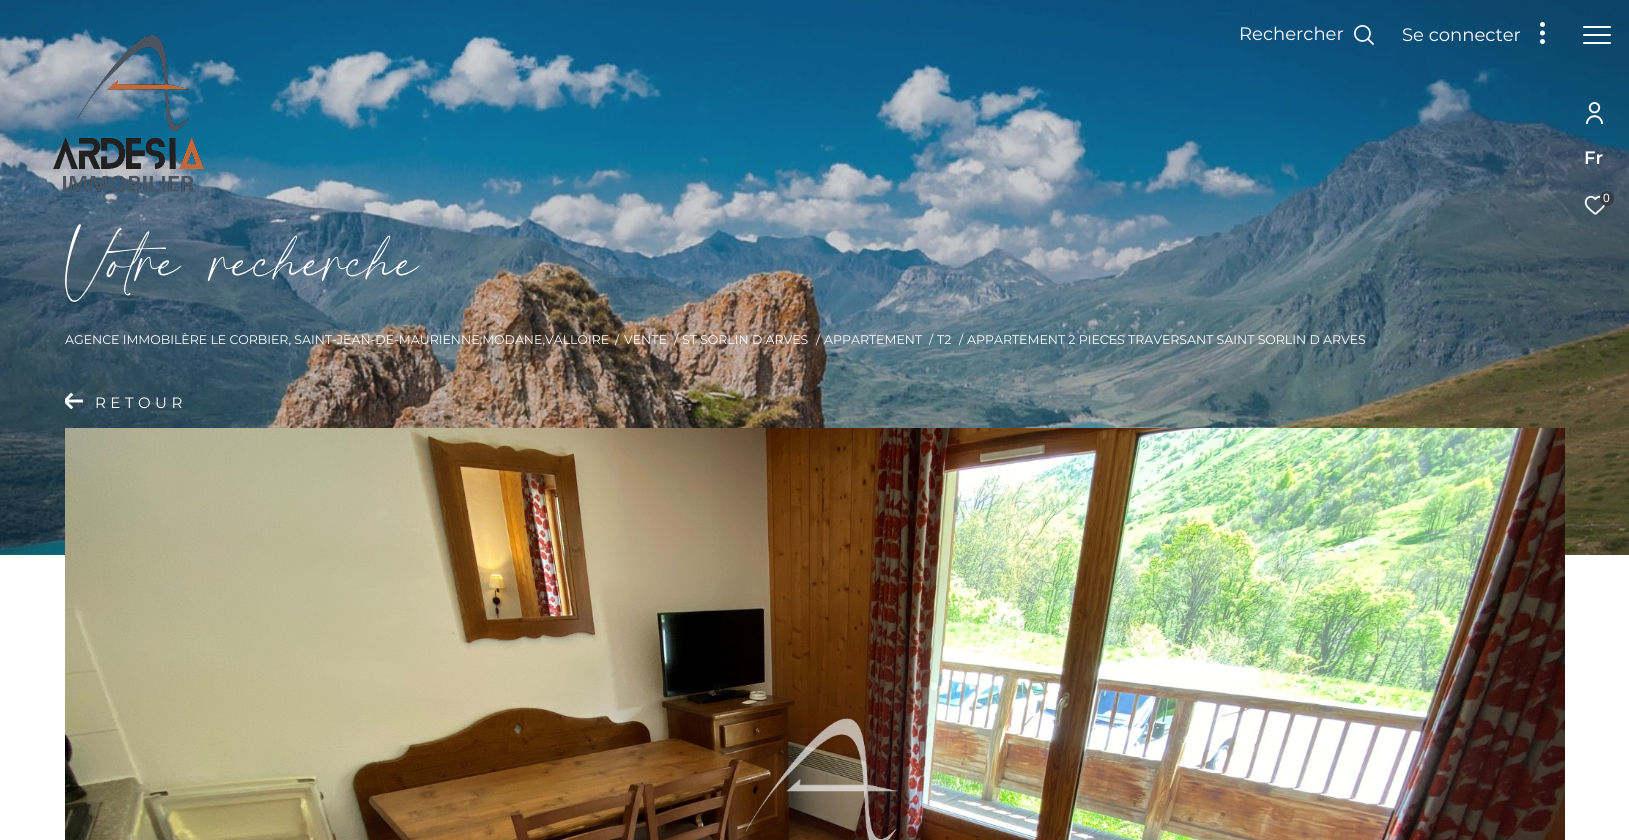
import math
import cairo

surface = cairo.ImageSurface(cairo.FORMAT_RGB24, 1629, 840)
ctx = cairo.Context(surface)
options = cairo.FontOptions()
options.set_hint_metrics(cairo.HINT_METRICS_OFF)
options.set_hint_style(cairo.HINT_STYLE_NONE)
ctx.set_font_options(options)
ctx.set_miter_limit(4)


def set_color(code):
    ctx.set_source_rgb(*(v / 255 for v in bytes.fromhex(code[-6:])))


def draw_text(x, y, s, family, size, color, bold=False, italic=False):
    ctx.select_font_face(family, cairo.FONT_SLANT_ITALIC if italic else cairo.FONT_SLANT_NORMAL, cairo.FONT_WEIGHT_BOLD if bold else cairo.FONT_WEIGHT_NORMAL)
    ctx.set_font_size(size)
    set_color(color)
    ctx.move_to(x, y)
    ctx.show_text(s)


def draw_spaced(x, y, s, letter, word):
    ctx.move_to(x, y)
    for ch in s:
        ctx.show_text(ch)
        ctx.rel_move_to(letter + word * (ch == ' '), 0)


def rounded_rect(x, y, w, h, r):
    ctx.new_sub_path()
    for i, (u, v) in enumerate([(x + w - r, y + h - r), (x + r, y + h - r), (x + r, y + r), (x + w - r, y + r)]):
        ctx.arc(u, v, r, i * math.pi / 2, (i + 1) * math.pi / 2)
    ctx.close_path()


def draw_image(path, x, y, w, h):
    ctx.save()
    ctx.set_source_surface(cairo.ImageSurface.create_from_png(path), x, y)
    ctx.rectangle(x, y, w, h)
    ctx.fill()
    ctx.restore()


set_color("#ffffff")
ctx.paint()
draw_image("assets/img1.png", 0, 0, 1629, 555)
draw_image("assets/img2.png", 53, 35, 151, 157)
draw_text(1239, 40, "Rechercher", "Montserrat Thin", 18, "#ffffff")
draw_image("assets/img3.png", 1354, 25, 20, 20)
draw_text(1402, 41, "Se connecter", "Montserrat Thin", 18, "#ffffff")
ctx.new_path()
ctx.arc(1542.5, 24.5, 2.5, 0, 2 * math.pi)
ctx.fill()
ctx.arc(1542.5, 33, 2.5, 0, 2 * math.pi)
ctx.fill()
ctx.arc(1542.5, 41.5, 2.5, 0, 2 * math.pi)
ctx.fill()
rounded_rect(1583, 34, 28, 2, 1)
ctx.fill()
rounded_rect(1583, 26, 28, 2, 1)
ctx.fill()
rounded_rect(1583, 42, 28, 2, 1)
ctx.fill()
draw_text(65, 300, "Votre recherche", "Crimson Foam", 120, "#ffffff")
draw_text(65, 344, "AGENCE IMMOBILÈRE LE CORBIER, SAINT-JEAN-DE-MAURIENNE,MODANE,VALLOIRE", "Montserrat Thin", 12.5, "#ffffff")
draw_text(615, 344, "/", "Montserrat Thin", 12.5, "#ffffff")
draw_text(624, 344, "VENTE", "Montserrat Thin", 12.5, "#ffffff")
draw_text(674, 344, "/", "Montserrat Thin", 12.5, "#ffffff")
draw_text(682, 344, "ST SORLIN D ARVES", "Montserrat Thin", 12.5, "#ffffff")
draw_text(816, 344, "/", "Montserrat Thin", 12.5, "#ffffff")
draw_text(824, 344, "APPARTEMENT", "Montserrat Thin", 12.5, "#ffffff")
draw_text(929, 344, "/", "Montserrat Thin", 12.5, "#ffffff")
draw_text(937, 344, "T2", "Montserrat Thin", 12.5, "#ffffff")
draw_text(959, 344, "/", "Montserrat Thin", 12.5, "#ffffff")
draw_text(967, 344, "APPARTEMENT 2 PIECES TRAVERSANT SAINT SORLIN D ARVES", "Montserrat Thin", 12.5, "#ffffff")
draw_image("assets/img4.png", 65, 392, 18, 17)
ctx.set_font_size(15)
draw_spaced(95, 408, "RETOUR", 4.5, 0)
draw_image("assets/img5.png", 1586, 102, 17, 22)
draw_text(1584, 164, "Fr", "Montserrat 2 Thin", 18, "#ffffff")
draw_image("assets/img6.png", 1584, 195, 22, 20)
set_color("#353c45")
rounded_rect(1600, 191, 14, 15, 7)
ctx.fill()
draw_text(1603, 202, "0", "Liberation Sans", 12, "#ffffff")
draw_image("assets/img7.png", 65, 428, 1500, 412)
surface.write_to_png("output.png")
